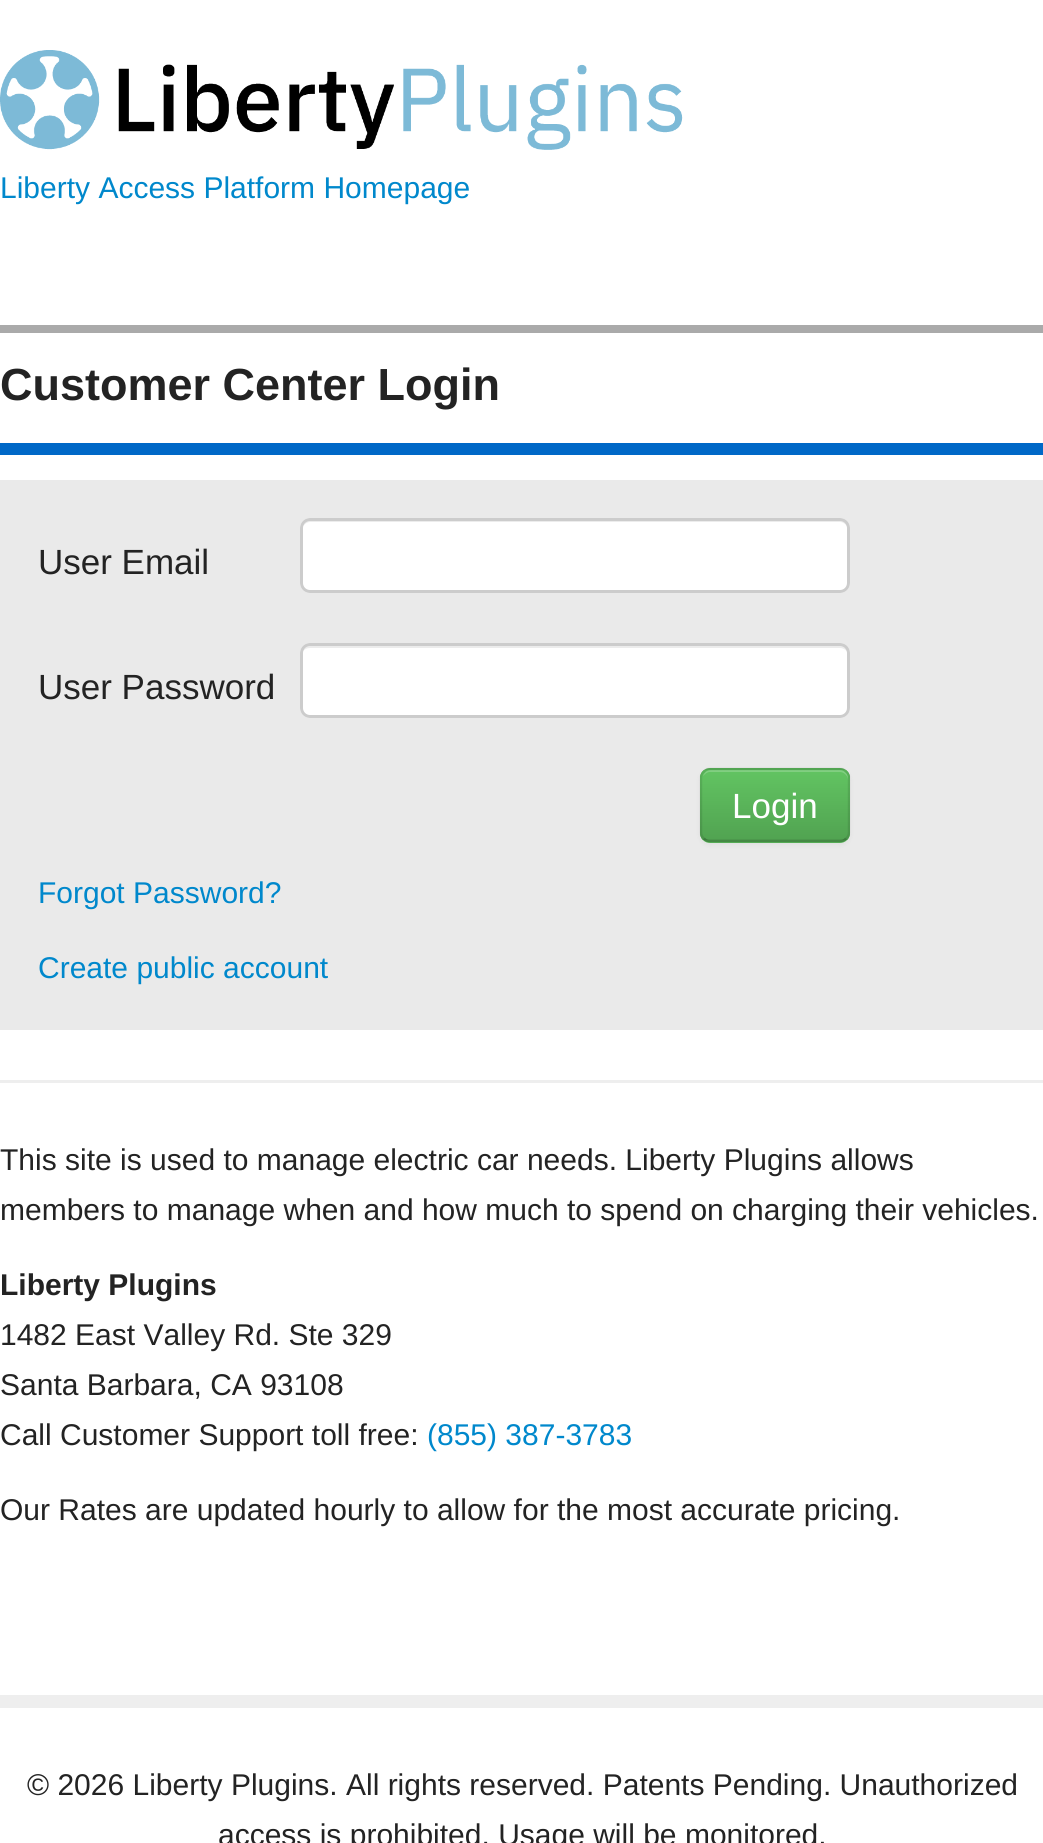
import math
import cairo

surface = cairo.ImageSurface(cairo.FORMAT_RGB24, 1043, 1843)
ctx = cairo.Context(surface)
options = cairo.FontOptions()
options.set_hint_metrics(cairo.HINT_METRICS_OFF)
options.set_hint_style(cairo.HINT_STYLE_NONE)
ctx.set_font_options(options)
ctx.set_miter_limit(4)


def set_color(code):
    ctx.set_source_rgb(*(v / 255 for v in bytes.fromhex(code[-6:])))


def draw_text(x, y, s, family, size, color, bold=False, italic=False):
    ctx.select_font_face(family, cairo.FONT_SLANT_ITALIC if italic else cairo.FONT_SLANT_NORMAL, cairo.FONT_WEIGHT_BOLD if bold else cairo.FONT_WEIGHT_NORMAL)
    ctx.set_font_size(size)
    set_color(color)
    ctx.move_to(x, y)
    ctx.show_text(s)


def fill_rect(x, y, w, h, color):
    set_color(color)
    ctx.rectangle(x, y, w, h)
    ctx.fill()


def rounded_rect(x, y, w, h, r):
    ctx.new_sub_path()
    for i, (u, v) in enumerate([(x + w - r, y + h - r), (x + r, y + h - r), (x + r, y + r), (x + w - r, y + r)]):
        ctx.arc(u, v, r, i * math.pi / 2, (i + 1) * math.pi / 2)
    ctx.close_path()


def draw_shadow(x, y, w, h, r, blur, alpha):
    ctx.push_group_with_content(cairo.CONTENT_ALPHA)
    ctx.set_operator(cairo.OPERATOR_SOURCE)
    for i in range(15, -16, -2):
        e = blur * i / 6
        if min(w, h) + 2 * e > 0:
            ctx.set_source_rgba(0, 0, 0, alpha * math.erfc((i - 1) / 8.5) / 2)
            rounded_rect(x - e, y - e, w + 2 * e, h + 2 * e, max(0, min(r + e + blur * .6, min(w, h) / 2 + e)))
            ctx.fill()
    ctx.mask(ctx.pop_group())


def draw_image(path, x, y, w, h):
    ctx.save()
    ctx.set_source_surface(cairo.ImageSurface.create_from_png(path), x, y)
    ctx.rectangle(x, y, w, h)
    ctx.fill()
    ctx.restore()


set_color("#ffffff")
ctx.paint()
draw_image("assets/img1.png", 0, 50, 683, 100)
draw_text(0, 198, "Liberty Access Platform Homepage", "Liberation Sans", 30, "#0088cc")
fill_rect(0, 325, 1043, 8, "#aaaaaa")
fill_rect(0, 443, 1043, 12, "#0068c7")
draw_text(0, 400, "Customer Center Login", "Liberation Sans", 45, "#232323", bold=True)
fill_rect(0, 480, 1043, 550, "#eaeaea")
draw_text(38, 574, "User Email", "Liberation Sans", 35, "#232323")
set_color("#ffffff")
rounded_rect(300, 518, 550, 75, 10)
ctx.fill()
set_color("#ececec")
ctx.new_path()
ctx.move_to(310, 522)
ctx.line_to(840, 522)
ctx.curve_to(844, 522, 848, 526, 848, 530)
ctx.line_to(848, 528)
ctx.curve_to(848, 524, 844, 520, 840, 520)
ctx.line_to(311, 520)
ctx.curve_to(307, 520, 304, 523, 303, 526)
ctx.curve_to(305, 524, 307, 522, 310, 522)
ctx.close_path()
ctx.fill()
rounded_rect(301.5, 519.5, 547, 72, 8.5)
set_color("#cccccc")
ctx.set_line_width(3)
ctx.stroke()
draw_text(38, 699, "User Password", "Liberation Sans", 35, "#232323")
set_color("#ffffff")
rounded_rect(300, 643, 550, 75, 10)
ctx.fill()
set_color("#ececec")
ctx.new_path()
ctx.move_to(310, 648)
ctx.line_to(840, 648)
ctx.curve_to(844, 648, 848, 651, 848, 655)
ctx.line_to(848, 653)
ctx.curve_to(848, 649, 844, 645, 840, 645)
ctx.line_to(311, 645)
ctx.curve_to(307, 645, 304, 648, 303, 651)
ctx.curve_to(305, 649, 307, 648, 310, 648)
ctx.close_path()
ctx.fill()
rounded_rect(301.5, 644.5, 547, 72, 8.5)
set_color("#cccccc")
ctx.stroke()
set_color("#000000")
draw_shadow(700, 770, 150, 75, 10, 2.5, 0.05)
set_color("#5bb75b")
rounded_rect(700, 768, 150, 75, 10)
ctx.fill()
ctx.save()
rounded_rect(700, 768, 150, 75, 10)
ctx.clip()
gradient = cairo.LinearGradient(775, 770, 775, 840)
gradient.add_color_stop_rgba(0, 0.384, 0.769, 0.384, 1)
gradient.add_color_stop_rgba(1, 0.318, 0.639, 0.318, 1)
ctx.set_source(gradient)
ctx.rectangle(700, 770, 150, 70)
ctx.fill()
ctx.restore()
ctx.set_source_rgba(1, 1, 1, 0.2)
ctx.new_path()
ctx.move_to(710, 772)
ctx.line_to(840, 772)
ctx.curve_to(844, 772, 848, 776, 848, 780)
ctx.line_to(848, 778)
ctx.curve_to(848, 774, 844, 770, 840, 770)
ctx.line_to(711, 770)
ctx.curve_to(707, 770, 704, 773, 703, 776)
ctx.curve_to(705, 774, 707, 772, 710, 772)
ctx.close_path()
ctx.fill()
ctx.new_path()
ctx.move_to(846, 838.5)
ctx.curve_to(844.5, 840.5, 842.5, 841, 840, 841)
ctx.line_to(710, 841)
ctx.curve_to(707.5, 841, 705.5, 840.5, 704, 838.5)
ctx.set_source_rgba(0, 0, 0, 0.25)
ctx.set_line_width(2.5)
ctx.stroke()
ctx.new_path()
ctx.move_to(704, 838.5)
ctx.curve_to(702, 837, 701, 835, 701, 832.5)
ctx.line_to(701, 777.5)
ctx.curve_to(701, 775, 702, 773, 704, 771.5)
ctx.curve_to(705.5, 769.5, 707.5, 769, 710, 769)
ctx.line_to(840, 769)
ctx.curve_to(842.5, 769, 844.5, 769.5, 846, 771.5)
ctx.curve_to(848, 773, 849, 775, 849, 777.5)
ctx.line_to(849, 832.5)
ctx.curve_to(849, 835, 848, 837, 846, 838.5)
ctx.set_source_rgba(0, 0, 0, 0.1)
ctx.stroke()
draw_text(732, 818, "Login", "Liberation Sans", 35, "#ffffff")
draw_text(38, 903, "Forgot Password?", "Liberation Sans", 30, "#0088cc")
draw_text(38, 978, "Create public account", "Liberation Sans", 30, "#0088cc")
fill_rect(0, 1080, 1043, 3, "#eeeeee")
draw_text(0, 1170, "This site is used to manage electric car needs. Liberty Plugins allows", "Liberation Sans", 30, "#232323")
draw_text(0, 1220, "members to manage when and how much to spend on charging their vehicles.", "Liberation Sans", 30, "#232323")
draw_text(0, 1295, "Liberty Plugins", "Liberation Sans", 30, "#232323", bold=True)
draw_text(0, 1345, "1482 East Valley Rd. Ste 329", "Liberation Sans", 30, "#232323")
draw_text(0, 1395, "Santa Barbara, CA 93108", "Liberation Sans", 30, "#232323")
draw_text(0, 1445, "Call Customer Support toll free:", "Liberation Sans", 30, "#232323")
draw_text(427, 1445, "(855) 387-3783", "Liberation Sans", 30, "#0088cc")
draw_text(0, 1520, "Our Rates are updated hourly to allow for the most accurate pricing.", "Liberation Sans", 30, "#232323")
fill_rect(0, 1695, 1043, 13, "#eeeeee")
draw_text(27, 1795, "© 2026 Liberty Plugins. All rights reserved. Patents Pending. Unauthorized", "Liberation Sans", 30, "#232323")
draw_text(218, 1845, "access is prohibited. Usage will be monitored.", "Liberation Sans", 30, "#232323")
surface.write_to_png("output.png")
